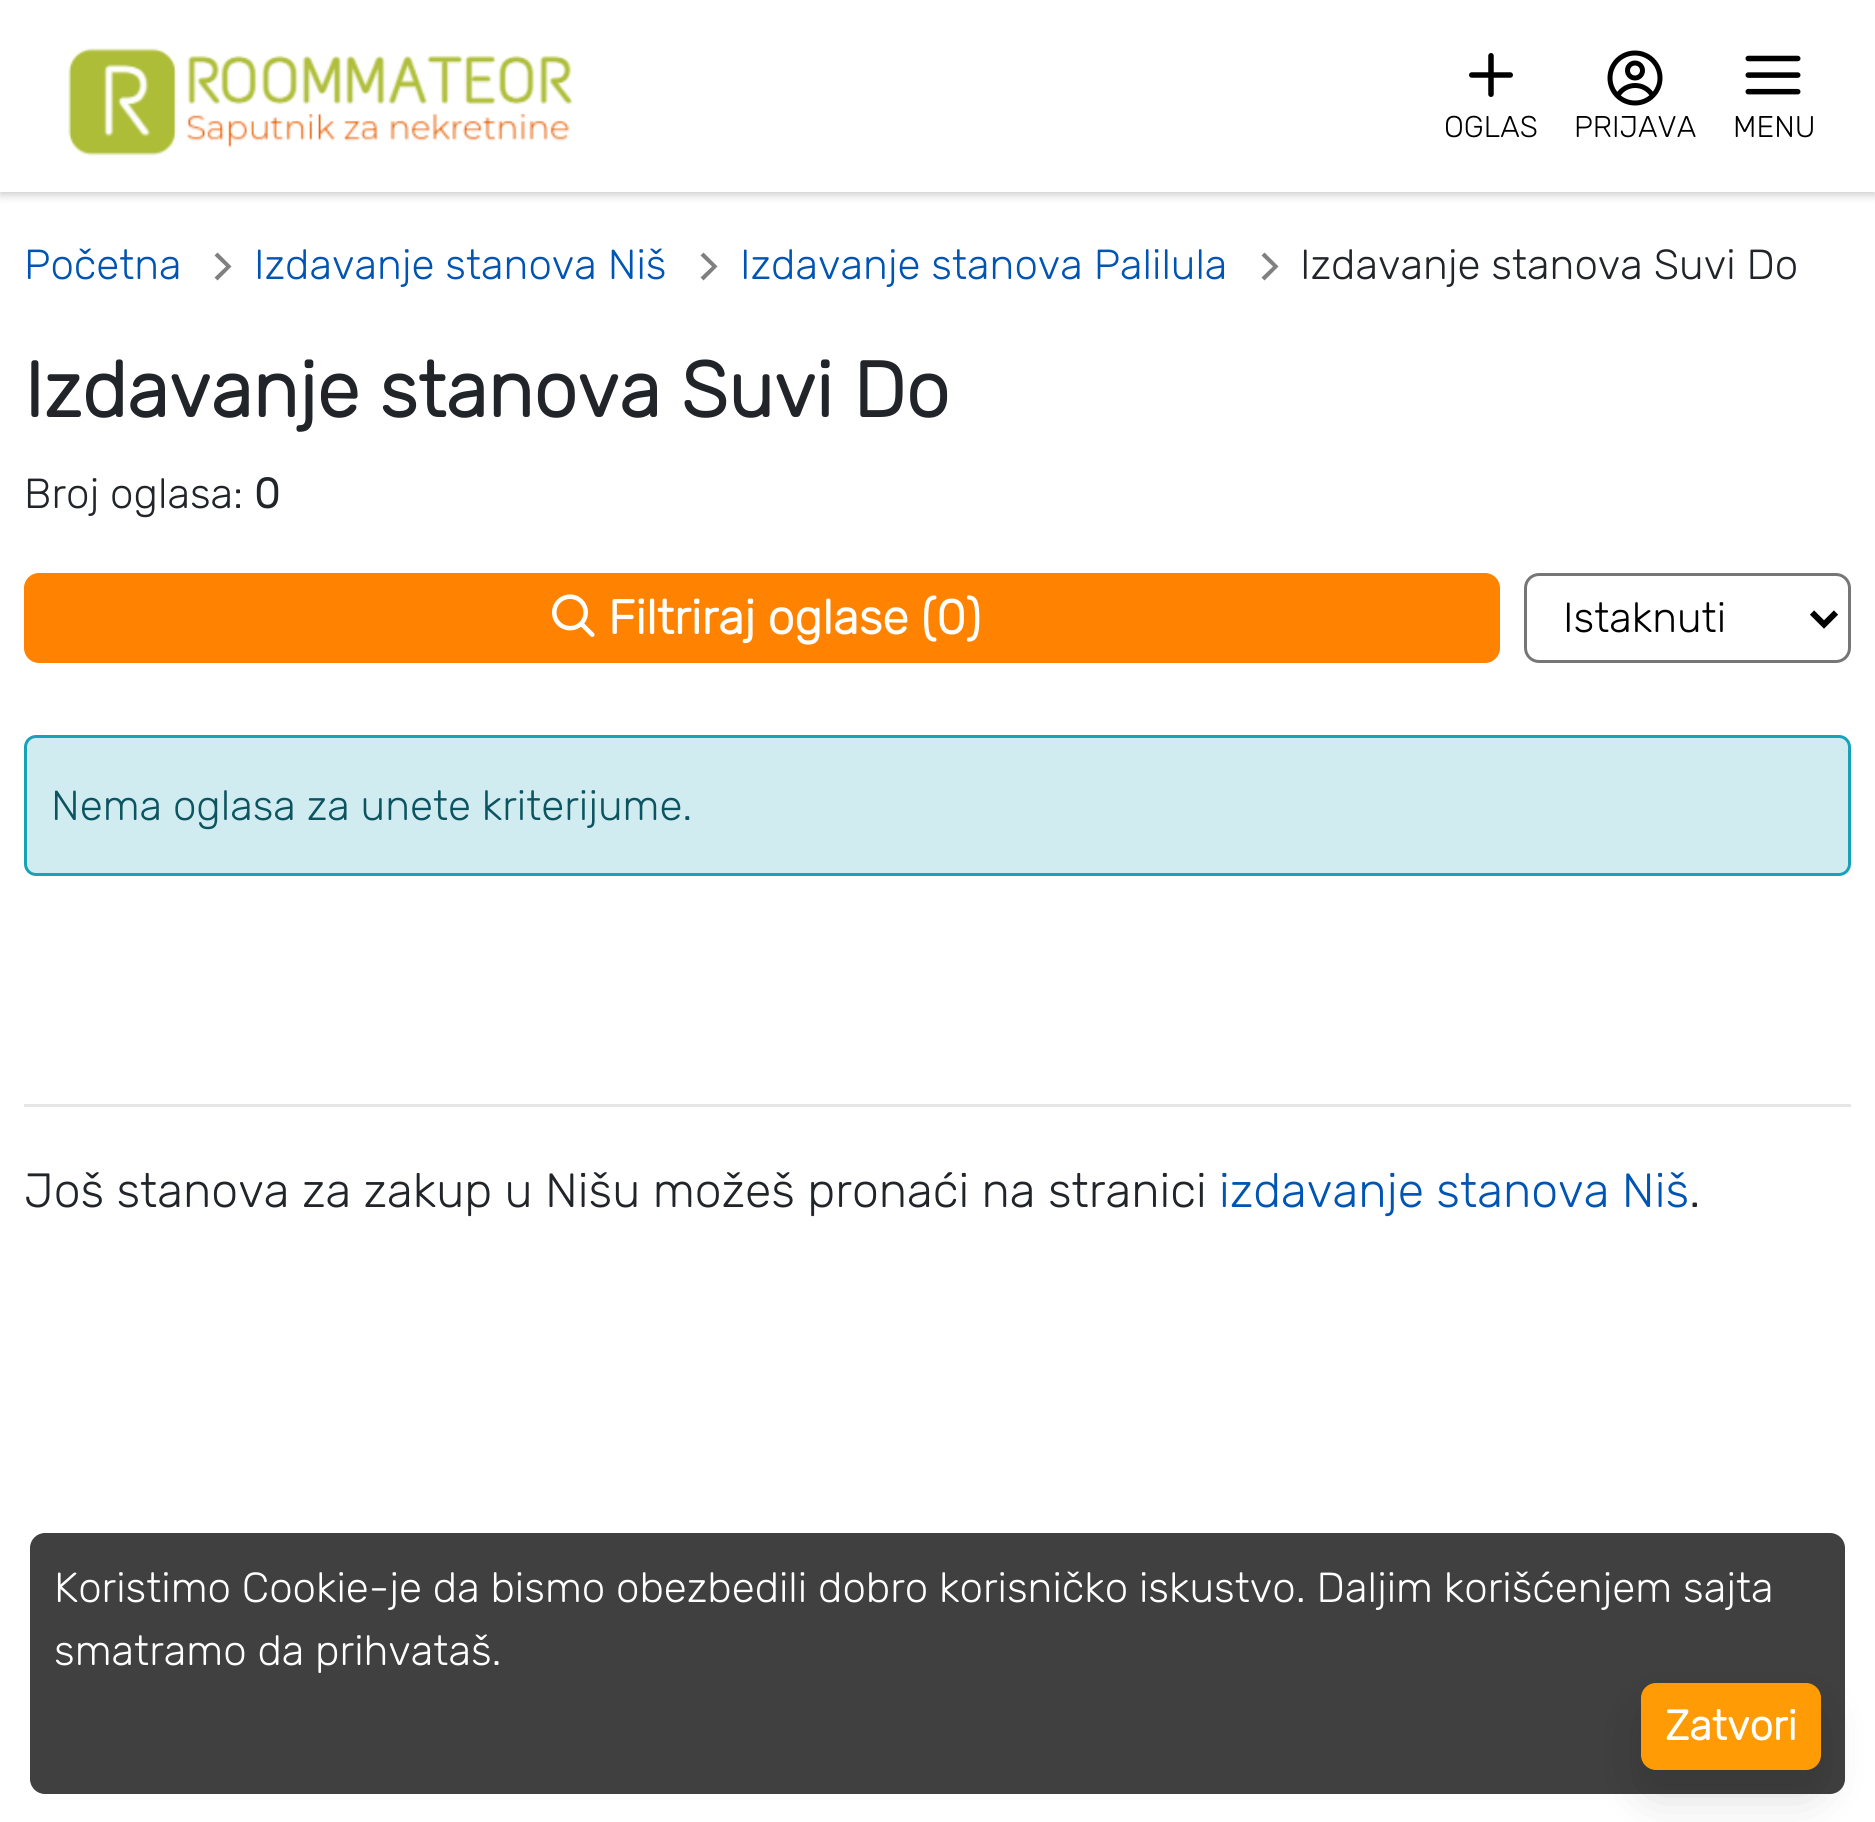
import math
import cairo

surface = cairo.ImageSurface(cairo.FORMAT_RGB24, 1875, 1822)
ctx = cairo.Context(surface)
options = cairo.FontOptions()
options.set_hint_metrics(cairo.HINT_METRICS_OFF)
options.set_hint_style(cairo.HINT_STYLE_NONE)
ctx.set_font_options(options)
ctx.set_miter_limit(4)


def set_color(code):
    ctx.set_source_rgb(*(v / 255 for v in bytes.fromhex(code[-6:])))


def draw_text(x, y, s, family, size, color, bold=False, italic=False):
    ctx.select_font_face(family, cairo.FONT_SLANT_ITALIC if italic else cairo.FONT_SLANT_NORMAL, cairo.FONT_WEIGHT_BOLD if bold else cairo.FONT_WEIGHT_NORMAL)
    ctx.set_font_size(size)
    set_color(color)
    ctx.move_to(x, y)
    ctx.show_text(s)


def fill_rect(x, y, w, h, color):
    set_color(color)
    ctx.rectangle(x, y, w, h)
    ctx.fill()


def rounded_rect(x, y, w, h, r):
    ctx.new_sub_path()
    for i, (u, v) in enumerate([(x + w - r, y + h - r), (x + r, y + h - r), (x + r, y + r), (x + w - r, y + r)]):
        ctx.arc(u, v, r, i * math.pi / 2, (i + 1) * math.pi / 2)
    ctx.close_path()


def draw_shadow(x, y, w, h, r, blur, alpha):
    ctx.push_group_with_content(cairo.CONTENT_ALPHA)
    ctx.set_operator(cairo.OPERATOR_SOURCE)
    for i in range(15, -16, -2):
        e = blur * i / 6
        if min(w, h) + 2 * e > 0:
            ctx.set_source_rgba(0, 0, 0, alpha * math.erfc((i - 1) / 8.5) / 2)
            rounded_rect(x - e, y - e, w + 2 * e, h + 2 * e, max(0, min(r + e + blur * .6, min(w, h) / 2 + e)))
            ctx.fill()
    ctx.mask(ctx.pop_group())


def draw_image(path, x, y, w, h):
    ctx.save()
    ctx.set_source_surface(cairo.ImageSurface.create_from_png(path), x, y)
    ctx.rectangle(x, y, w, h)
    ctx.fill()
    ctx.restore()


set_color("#ffffff")
ctx.paint()
ctx.save()
ctx.rectangle(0, 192, 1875, 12)
ctx.clip()
set_color("#cccccc")
draw_shadow(0, 3, 1875, 192, 0, 4.5, 1)
ctx.restore()
draw_image("assets/img1.png", 68, 48, 505, 109)
draw_image("assets/img2.png", 1469, 53, 44, 44)
draw_text(1444, 137, "OGLAS", "Rubik Light", 30, "#000000")
draw_image("assets/img3.png", 1607, 50, 56, 56)
draw_text(1574, 137, "PRIJAVA", "Rubik Light", 30, "#000000")
draw_image("assets/img4.png", 1745, 55, 56, 40)
draw_text(1733, 137, "MENU", "Rubik Light", 30, "#000000")
draw_text(24, 279, "Početna", "Rubik Light", 42, "#0054b3")
set_color("#808080")
ctx.new_path()
ctx.move_to(214.5, 255.5)
ctx.line_to(217.5, 252.5)
ctx.line_to(231.5, 266.5)
ctx.line_to(217.5, 280.5)
ctx.line_to(214.5, 277.5)
ctx.line_to(226, 266.5)
ctx.close_path()
ctx.fill()
draw_text(254, 279, "Izdavanje stanova Niš", "Rubik Light", 42, "#0054b3")
set_color("#808080")
ctx.new_path()
ctx.move_to(700.5, 255.5)
ctx.line_to(703.5, 252.5)
ctx.line_to(717.5, 266.5)
ctx.line_to(703.5, 280.5)
ctx.line_to(700.5, 277.5)
ctx.line_to(712, 266.5)
ctx.close_path()
ctx.fill()
draw_text(740, 279, "Izdavanje stanova Palilula", "Rubik Light", 42, "#0054b3")
set_color("#808080")
ctx.new_path()
ctx.move_to(1261.5, 255.5)
ctx.line_to(1264.5, 252.5)
ctx.line_to(1278.5, 266.5)
ctx.line_to(1264.5, 280.5)
ctx.line_to(1261.5, 277.5)
ctx.line_to(1273, 266.5)
ctx.close_path()
ctx.fill()
draw_text(1300, 279, "Izdavanje stanova Suvi Do", "Rubik Light", 42, "#212529")
draw_text(24, 417, "Izdavanje stanova Suvi Do", "Rubik", 78, "#212529", bold=True)
draw_text(24, 508, "Broj oglasa:", "Rubik Light", 42, "#212529")
draw_text(254, 508, "0", "Rubik", 42, "#212529", bold=True)
set_color("#ff8300")
rounded_rect(24, 573, 1476, 90, 15)
ctx.fill()
draw_image("assets/img5.png", 552, 594, 43, 43)
draw_text(608, 634, "Filtriraj oglase (0)", "Rubik", 48, "#ffffff", bold=True)
rounded_rect(1525.5, 574.5, 324, 87, 13.5)
set_color("#767676")
ctx.set_line_width(3)
ctx.stroke()
ctx.new_path()
ctx.move_to(1812, 612.5)
ctx.line_to(1824, 624.5)
ctx.line_to(1836, 612.5)
set_color("#000000")
ctx.set_line_width(6)
ctx.stroke()
draw_text(1563, 632, "Istaknuti", "Rubik Light", 42, "#000000")
set_color("#d1ecf1")
rounded_rect(25.5, 736.5, 1824, 138, 10.5)
ctx.fill_preserve()
set_color("#17a2b8")
ctx.set_line_width(3)
ctx.stroke()
draw_text(51, 820, "Nema oglasa za unete kriterijume.", "Rubik Light", 42, "#0c5460")
fill_rect(24, 1104, 1827, 3, "#e6e6e6")
draw_text(24, 1207, "Još stanova za zakup u Nišu možeš pronaći na stranici", "Rubik Light", 48, "#212529")
draw_text(1219, 1207, "izdavanje stanova Niš", "Rubik Light", 48, "#0054b3")
draw_text(1689, 1207, ".", "Rubik Light", 48, "#212529")
set_color("#404040")
rounded_rect(30, 1533, 1815, 261, 15)
ctx.fill()
draw_text(54, 1602, "Koristimo Cookie-je da bismo obezbedili dobro korisničko iskustvo. Daljim korišćenjem sajta", "Rubik Light", 42, "#ffffff")
draw_text(54, 1665, "smatramo da prihvataš.", "Rubik Light", 42, "#ffffff")
set_color("#050505")
draw_shadow(1641, 1707, 180, 87, 15, 24, 0.15)
set_color("#ff9b05")
rounded_rect(1641, 1683, 180, 87, 15)
ctx.fill()
draw_text(1665, 1740, "Zatvori", "Rubik", 42, "#ffffff", bold=True)
surface.write_to_png("output.png")
